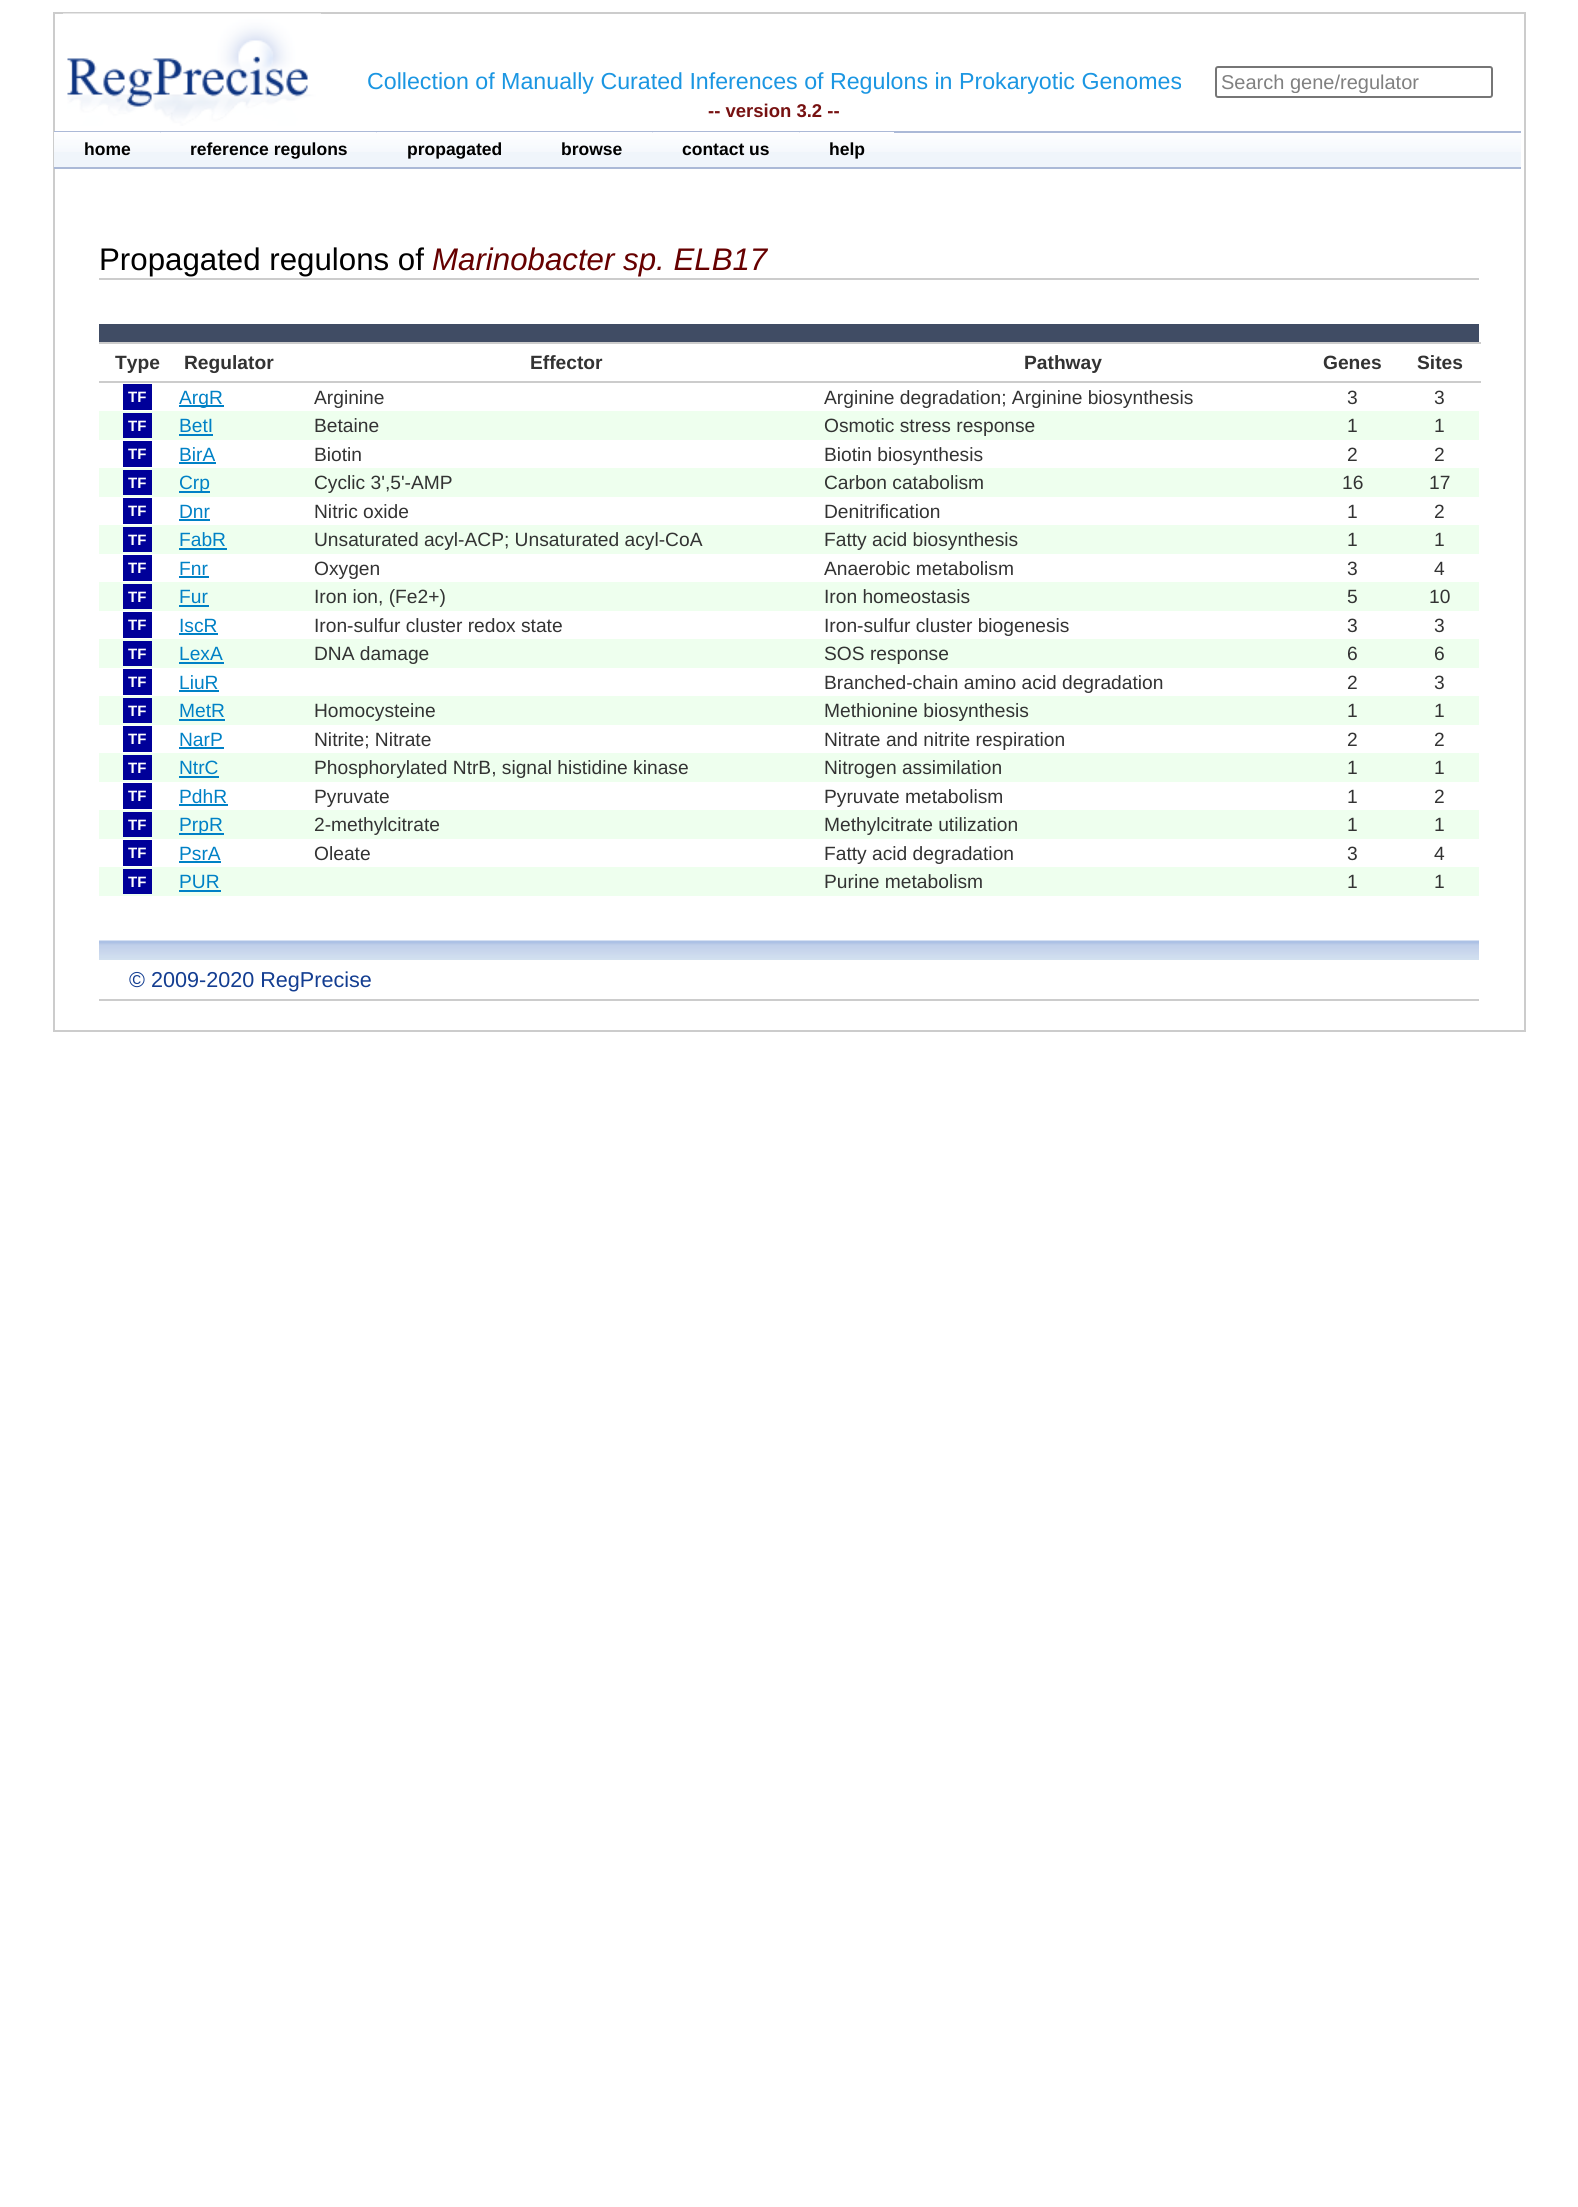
import math
import cairo

surface = cairo.ImageSurface(cairo.FORMAT_RGB24, 1578, 2207)
ctx = cairo.Context(surface)
options = cairo.FontOptions()
options.set_hint_metrics(cairo.HINT_METRICS_OFF)
options.set_hint_style(cairo.HINT_STYLE_NONE)
ctx.set_font_options(options)
ctx.set_miter_limit(4)


def set_color(code):
    ctx.set_source_rgb(*(v / 255 for v in bytes.fromhex(code[-6:])))


def draw_text(x, y, s, family, size, color, bold=False, italic=False):
    ctx.select_font_face(family, cairo.FONT_SLANT_ITALIC if italic else cairo.FONT_SLANT_NORMAL, cairo.FONT_WEIGHT_BOLD if bold else cairo.FONT_WEIGHT_NORMAL)
    ctx.set_font_size(size)
    set_color(color)
    ctx.move_to(x, y)
    ctx.show_text(s)


def fill_rect(x, y, w, h, color):
    set_color(color)
    ctx.rectangle(x, y, w, h)
    ctx.fill()


def rounded_rect(x, y, w, h, r):
    ctx.new_sub_path()
    for i, (u, v) in enumerate([(x + w - r, y + h - r), (x + r, y + h - r), (x + r, y + r), (x + w - r, y + r)]):
        ctx.arc(u, v, r, i * math.pi / 2, (i + 1) * math.pi / 2)
    ctx.close_path()


def draw_image(path, x, y, w, h):
    ctx.save()
    ctx.set_source_surface(cairo.ImageSurface.create_from_png(path), x, y)
    ctx.rectangle(x, y, w, h)
    ctx.fill()
    ctx.restore()


set_color("#ffffff")
ctx.paint()
ctx.rectangle(54, 13, 1471, 1018)
set_color("#cccccc")
ctx.stroke()
draw_image("assets/img1.png", 63, 13, 258, 113)
draw_text(367, 89, "Collection of Manually Curated Inferences of Regulons in Prokaryotic Genomes", "Liberation Sans", 23.2, "#1b96e2")
draw_text(708, 117, "-- version 3.2 --", "Liberation Sans", 18.5, "#771111", bold=True)
rounded_rect(1216, 67, 276, 30, 2)
set_color("#767676")
ctx.stroke()
ctx.save()
ctx.rectangle(1221, 71, 266, 22)
ctx.clip()
draw_text(1221, 89, "Search gene/regulator", "Liberation Sans", 20, "#808080")
ctx.restore()
fill_rect(54, 152, 1467, 15, "#f0f5fb")
draw_image("assets/img2.png", 54, 133, 1467, 19)
fill_rect(54, 131, 1467, 2, "#abb9d7")
fill_rect(54, 167, 1467, 2, "#abb9d7")
draw_image("assets/img3.png", 54, 132, 107, 1)
draw_text(84, 155, "home", "Liberation Sans", 17.5, "#000000", bold=True)
draw_image("assets/img4.png", 160, 132, 217, 1)
draw_text(190, 155, "reference regulons", "Liberation Sans", 17.5, "#000000", bold=True)
draw_image("assets/img5.png", 376, 132, 155, 1)
draw_text(407, 155, "propagated", "Liberation Sans", 17.5, "#000000", bold=True)
draw_image("assets/img6.png", 531, 132, 122, 1)
draw_text(561, 155, "browse", "Liberation Sans", 17.5, "#000000", bold=True)
draw_image("assets/img7.png", 652, 132, 148, 1)
draw_text(682, 155, "contact us", "Liberation Sans", 17.5, "#000000", bold=True)
draw_image("assets/img8.png", 799, 132, 95, 1)
draw_text(829, 155, "help", "Liberation Sans", 17.5, "#000000", bold=True)
fill_rect(99, 278, 1380, 2, "#cccccc")
draw_text(99, 270, "Propagated regulons of", "Liberation Sans", 31.25, "#000000")
draw_text(432, 270, "Marinobacter sp. ELB17", "Liberation Sans", 31.25, "#660000", italic=True)
fill_rect(99, 324, 1380, 18, "#404c64")
fill_rect(99, 342, 1382, 2, "#cccccc")
draw_text(115, 369, "Type", "Liberation Sans", 19.2, "#333333", bold=True)
draw_text(184, 369, "Regulator", "Liberation Sans", 19.2, "#333333", bold=True)
draw_text(530, 369, "Effector", "Liberation Sans", 19.2, "#333333", bold=True)
draw_text(1024, 369, "Pathway", "Liberation Sans", 19.2, "#333333", bold=True)
draw_text(1323, 369, "Genes", "Liberation Sans", 19.2, "#333333", bold=True)
fill_rect(99, 381, 1382, 2, "#cccccc")
draw_text(1417, 369, "Sites", "Liberation Sans", 19.2, "#333333", bold=True)
fill_rect(123, 384, 29, 26, "#000099")
draw_text(128, 402, "TF", "Liberation Sans", 15, "#ffffff", bold=True)
fill_rect(179, 405, 45, 2, "#0081c6")
draw_text(179, 404, "ArgR", "Liberation Sans", 19.2, "#0081c6")
draw_text(314, 404, "Arginine", "Liberation Sans", 19.2, "#333333")
draw_text(824, 404, "Arginine degradation; Arginine biosynthesis", "Liberation Sans", 19.2, "#333333")
draw_text(1347, 404, "3", "Liberation Sans", 19.2, "#333333")
draw_text(1434, 404, "3", "Liberation Sans", 19.2, "#333333")
fill_rect(99, 411, 1380, 29, "#eeffee")
fill_rect(123, 413, 29, 25, "#000099")
draw_text(128, 431, "TF", "Liberation Sans", 15, "#ffffff", bold=True)
draw_text(179, 432, "BetI", "Liberation Sans", 19.2, "#0081c6")
fill_rect(179, 434, 34, 2, "#0081c6")
draw_text(314, 432, "Betaine", "Liberation Sans", 19.2, "#333333")
draw_text(824, 432, "Osmotic stress response", "Liberation Sans", 19.2, "#333333")
draw_text(1347, 432, "1", "Liberation Sans", 19.2, "#333333")
draw_text(1434, 432, "1", "Liberation Sans", 19.2, "#333333")
fill_rect(123, 441, 29, 26, "#000099")
draw_text(128, 459, "TF", "Liberation Sans", 15, "#ffffff", bold=True)
draw_text(179, 461, "BirA", "Liberation Sans", 19.2, "#0081c6")
fill_rect(179, 462, 37, 2, "#0081c6")
draw_text(314, 461, "Biotin", "Liberation Sans", 19.2, "#333333")
draw_text(824, 461, "Biotin biosynthesis", "Liberation Sans", 19.2, "#333333")
draw_text(1347, 461, "2", "Liberation Sans", 19.2, "#333333")
draw_text(1434, 461, "2", "Liberation Sans", 19.2, "#333333")
fill_rect(99, 468, 1380, 29, "#eeffee")
fill_rect(123, 470, 29, 25, "#000099")
draw_text(128, 488, "TF", "Liberation Sans", 15, "#ffffff", bold=True)
fill_rect(179, 491, 31, 2, "#0081c6")
draw_text(179, 489, "Crp", "Liberation Sans", 19.2, "#0081c6")
draw_text(314, 489, "Cyclic 3',5'-AMP", "Liberation Sans", 19.2, "#333333")
draw_text(824, 489, "Carbon catabolism", "Liberation Sans", 19.2, "#333333")
draw_text(1342, 489, "16", "Liberation Sans", 19.2, "#333333")
draw_text(1429, 489, "17", "Liberation Sans", 19.2, "#333333")
fill_rect(123, 498, 29, 26, "#000099")
draw_text(128, 516, "TF", "Liberation Sans", 15, "#ffffff", bold=True)
draw_text(179, 518, "Dnr", "Liberation Sans", 19.2, "#0081c6")
fill_rect(179, 519, 31, 2, "#0081c6")
draw_text(314, 518, "Nitric oxide", "Liberation Sans", 19.2, "#333333")
draw_text(824, 518, "Denitrification", "Liberation Sans", 19.2, "#333333")
draw_text(1347, 518, "1", "Liberation Sans", 19.2, "#333333")
draw_text(1434, 518, "2", "Liberation Sans", 19.2, "#333333")
fill_rect(99, 525, 1380, 29, "#eeffee")
fill_rect(123, 527, 29, 25, "#000099")
draw_text(128, 545, "TF", "Liberation Sans", 15, "#ffffff", bold=True)
draw_text(179, 546, "FabR", "Liberation Sans", 19.2, "#0081c6")
fill_rect(179, 548, 48, 2, "#0081c6")
draw_text(314, 546, "Unsaturated acyl-ACP; Unsaturated acyl-CoA", "Liberation Sans", 19.2, "#333333")
draw_text(824, 546, "Fatty acid biosynthesis", "Liberation Sans", 19.2, "#333333")
draw_text(1347, 546, "1", "Liberation Sans", 19.2, "#333333")
draw_text(1434, 546, "1", "Liberation Sans", 19.2, "#333333")
fill_rect(123, 555, 29, 26, "#000099")
draw_text(128, 573, "TF", "Liberation Sans", 15, "#ffffff", bold=True)
draw_text(179, 575, "Fnr", "Liberation Sans", 19.2, "#0081c6")
fill_rect(179, 576, 30, 2, "#0081c6")
draw_text(314, 575, "Oxygen", "Liberation Sans", 19.2, "#333333")
draw_text(824, 575, "Anaerobic metabolism", "Liberation Sans", 19.2, "#333333")
draw_text(1347, 575, "3", "Liberation Sans", 19.2, "#333333")
draw_text(1434, 575, "4", "Liberation Sans", 19.2, "#333333")
fill_rect(99, 582, 1380, 29, "#eeffee")
fill_rect(123, 584, 29, 25, "#000099")
draw_text(128, 602, "TF", "Liberation Sans", 15, "#ffffff", bold=True)
draw_text(179, 603, "Fur", "Liberation Sans", 19.2, "#0081c6")
fill_rect(179, 605, 30, 2, "#0081c6")
draw_text(314, 603, "Iron ion, (Fe2+)", "Liberation Sans", 19.2, "#333333")
draw_text(824, 603, "Iron homeostasis", "Liberation Sans", 19.2, "#333333")
draw_text(1347, 603, "5", "Liberation Sans", 19.2, "#333333")
draw_text(1429, 603, "10", "Liberation Sans", 19.2, "#333333")
fill_rect(123, 612, 29, 26, "#000099")
draw_text(128, 630, "TF", "Liberation Sans", 15, "#ffffff", bold=True)
draw_text(179, 632, "IscR", "Liberation Sans", 19.2, "#0081c6")
fill_rect(179, 633, 39, 2, "#0081c6")
draw_text(314, 632, "Iron-sulfur cluster redox state", "Liberation Sans", 19.2, "#333333")
draw_text(824, 632, "Iron-sulfur cluster biogenesis", "Liberation Sans", 19.2, "#333333")
draw_text(1347, 632, "3", "Liberation Sans", 19.2, "#333333")
draw_text(1434, 632, "3", "Liberation Sans", 19.2, "#333333")
fill_rect(99, 639, 1380, 29, "#eeffee")
fill_rect(123, 641, 29, 25, "#000099")
draw_text(128, 659, "TF", "Liberation Sans", 15, "#ffffff", bold=True)
draw_text(179, 660, "LexA", "Liberation Sans", 19.2, "#0081c6")
fill_rect(179, 662, 45, 2, "#0081c6")
draw_text(314, 660, "DNA damage", "Liberation Sans", 19.2, "#333333")
draw_text(824, 660, "SOS response", "Liberation Sans", 19.2, "#333333")
draw_text(1347, 660, "6", "Liberation Sans", 19.2, "#333333")
draw_text(1434, 660, "6", "Liberation Sans", 19.2, "#333333")
fill_rect(123, 669, 29, 26, "#000099")
draw_text(128, 687, "TF", "Liberation Sans", 15, "#ffffff", bold=True)
draw_text(179, 689, "LiuR", "Liberation Sans", 19.2, "#0081c6")
fill_rect(179, 690, 40, 2, "#0081c6")
draw_text(824, 689, "Branched-chain amino acid degradation", "Liberation Sans", 19.2, "#333333")
draw_text(1347, 689, "2", "Liberation Sans", 19.2, "#333333")
draw_text(1434, 689, "3", "Liberation Sans", 19.2, "#333333")
fill_rect(99, 696, 1380, 29, "#eeffee")
fill_rect(123, 698, 29, 25, "#000099")
draw_text(128, 716, "TF", "Liberation Sans", 15, "#ffffff", bold=True)
draw_text(179, 717, "MetR", "Liberation Sans", 19.2, "#0081c6")
fill_rect(179, 719, 46, 2, "#0081c6")
draw_text(314, 717, "Homocysteine", "Liberation Sans", 19.2, "#333333")
draw_text(824, 717, "Methionine biosynthesis", "Liberation Sans", 19.2, "#333333")
draw_text(1347, 717, "1", "Liberation Sans", 19.2, "#333333")
draw_text(1434, 717, "1", "Liberation Sans", 19.2, "#333333")
fill_rect(123, 726, 29, 26, "#000099")
draw_text(128, 744, "TF", "Liberation Sans", 15, "#ffffff", bold=True)
draw_text(179, 746, "NarP", "Liberation Sans", 19.2, "#0081c6")
fill_rect(179, 747, 45, 2, "#0081c6")
draw_text(314, 746, "Nitrite; Nitrate", "Liberation Sans", 19.2, "#333333")
draw_text(824, 746, "Nitrate and nitrite respiration", "Liberation Sans", 19.2, "#333333")
draw_text(1347, 746, "2", "Liberation Sans", 19.2, "#333333")
draw_text(1434, 746, "2", "Liberation Sans", 19.2, "#333333")
fill_rect(99, 753, 1380, 29, "#eeffee")
fill_rect(123, 755, 29, 25, "#000099")
draw_text(128, 773, "TF", "Liberation Sans", 15, "#ffffff", bold=True)
draw_text(179, 774, "NtrC", "Liberation Sans", 19.2, "#0081c6")
fill_rect(179, 776, 40, 2, "#0081c6")
draw_text(314, 774, "Phosphorylated NtrB, signal histidine kinase", "Liberation Sans", 19.2, "#333333")
draw_text(824, 774, "Nitrogen assimilation", "Liberation Sans", 19.2, "#333333")
draw_text(1347, 774, "1", "Liberation Sans", 19.2, "#333333")
draw_text(1434, 774, "1", "Liberation Sans", 19.2, "#333333")
fill_rect(123, 783, 29, 26, "#000099")
draw_text(128, 801, "TF", "Liberation Sans", 15, "#ffffff", bold=True)
draw_text(179, 803, "PdhR", "Liberation Sans", 19.2, "#0081c6")
fill_rect(179, 804, 49, 2, "#0081c6")
draw_text(314, 803, "Pyruvate", "Liberation Sans", 19.2, "#333333")
draw_text(824, 803, "Pyruvate metabolism", "Liberation Sans", 19.2, "#333333")
draw_text(1347, 803, "1", "Liberation Sans", 19.2, "#333333")
draw_text(1434, 803, "2", "Liberation Sans", 19.2, "#333333")
fill_rect(99, 810, 1380, 29, "#eeffee")
fill_rect(123, 812, 29, 25, "#000099")
draw_text(128, 830, "TF", "Liberation Sans", 15, "#ffffff", bold=True)
fill_rect(179, 833, 45, 2, "#0081c6")
draw_text(179, 831, "PrpR", "Liberation Sans", 19.2, "#0081c6")
draw_text(314, 831, "2-methylcitrate", "Liberation Sans", 19.2, "#333333")
draw_text(824, 831, "Methylcitrate utilization", "Liberation Sans", 19.2, "#333333")
draw_text(1347, 831, "1", "Liberation Sans", 19.2, "#333333")
draw_text(1434, 831, "1", "Liberation Sans", 19.2, "#333333")
fill_rect(123, 840, 29, 26, "#000099")
draw_text(128, 858, "TF", "Liberation Sans", 15, "#ffffff", bold=True)
draw_text(179, 860, "PsrA", "Liberation Sans", 19.2, "#0081c6")
fill_rect(179, 861, 42, 2, "#0081c6")
draw_text(314, 860, "Oleate", "Liberation Sans", 19.2, "#333333")
draw_text(824, 860, "Fatty acid degradation", "Liberation Sans", 19.2, "#333333")
draw_text(1347, 860, "3", "Liberation Sans", 19.2, "#333333")
draw_text(1434, 860, "4", "Liberation Sans", 19.2, "#333333")
fill_rect(99, 867, 1380, 29, "#eeffee")
fill_rect(123, 869, 29, 25, "#000099")
draw_text(128, 887, "TF", "Liberation Sans", 15, "#ffffff", bold=True)
draw_text(179, 888, "PUR", "Liberation Sans", 19.2, "#0081c6")
fill_rect(179, 890, 42, 2, "#0081c6")
draw_text(824, 888, "Purine metabolism", "Liberation Sans", 19.2, "#333333")
draw_text(1347, 888, "1", "Liberation Sans", 19.2, "#333333")
draw_text(1434, 888, "1", "Liberation Sans", 19.2, "#333333")
draw_image("assets/img9.png", 99, 940, 1380, 20)
draw_text(129, 987, "© 2009-2020 RegPrecise", "Liberation Sans", 21.6, "#133d91")
fill_rect(99, 999, 1380, 2, "#cccccc")
surface.write_to_png("output.png")
